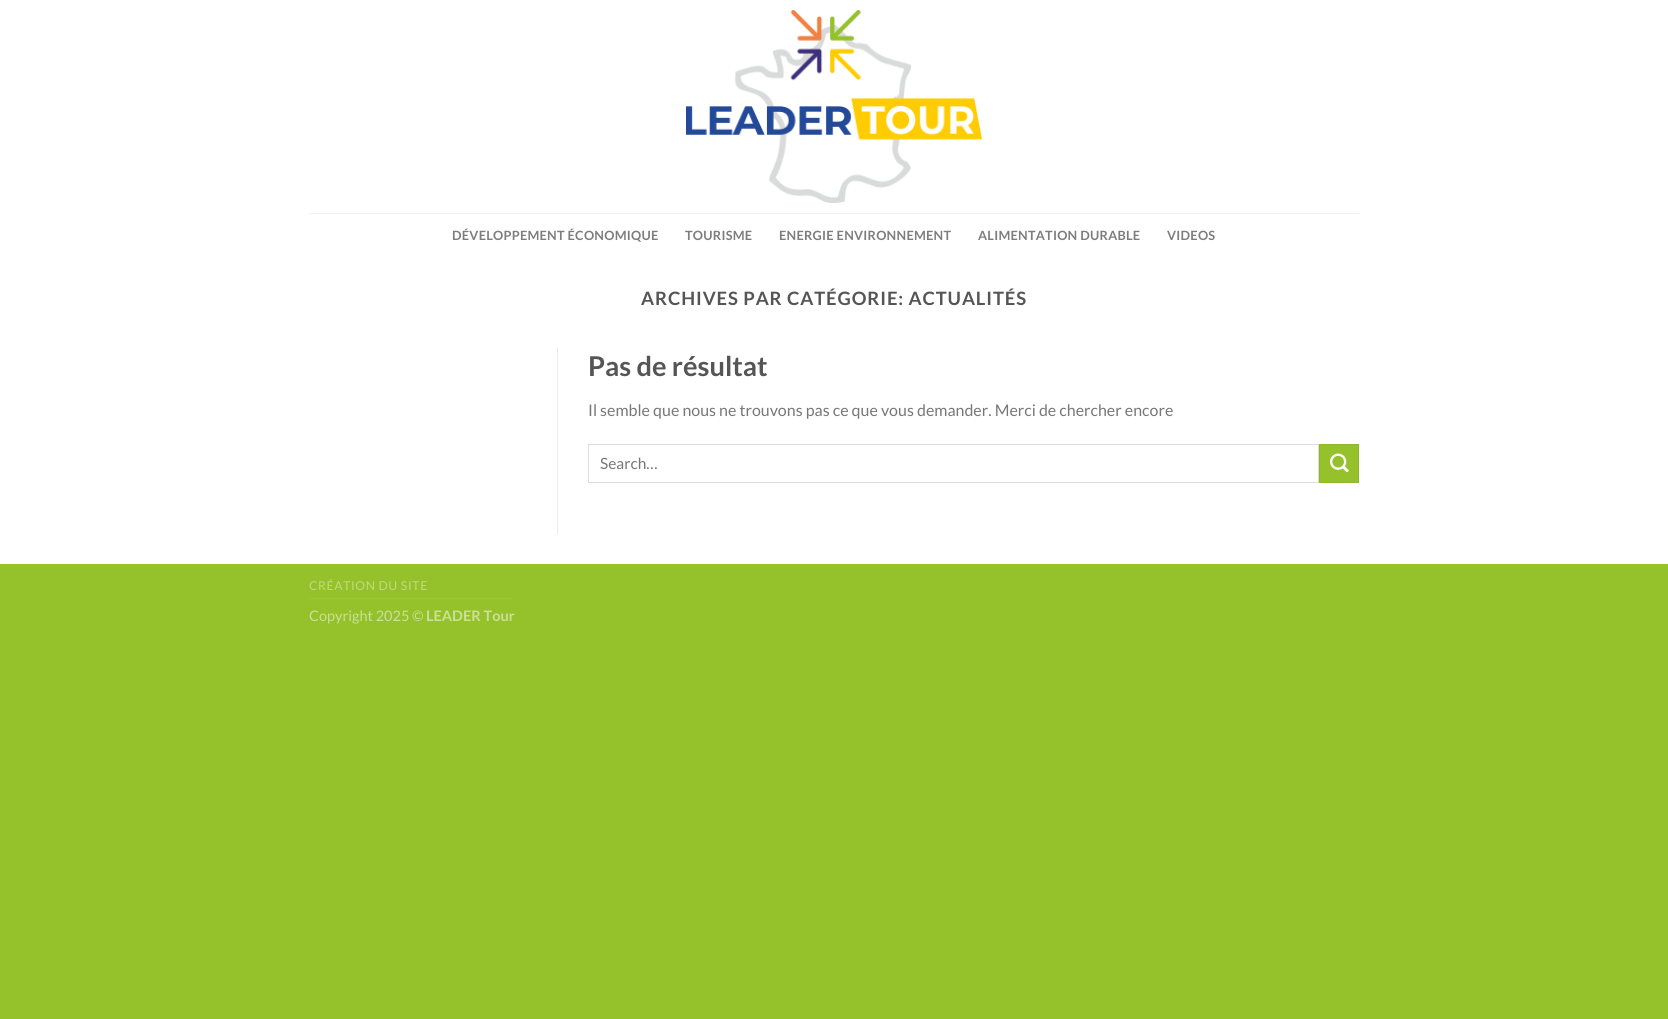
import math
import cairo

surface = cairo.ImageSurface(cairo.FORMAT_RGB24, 1668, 1019)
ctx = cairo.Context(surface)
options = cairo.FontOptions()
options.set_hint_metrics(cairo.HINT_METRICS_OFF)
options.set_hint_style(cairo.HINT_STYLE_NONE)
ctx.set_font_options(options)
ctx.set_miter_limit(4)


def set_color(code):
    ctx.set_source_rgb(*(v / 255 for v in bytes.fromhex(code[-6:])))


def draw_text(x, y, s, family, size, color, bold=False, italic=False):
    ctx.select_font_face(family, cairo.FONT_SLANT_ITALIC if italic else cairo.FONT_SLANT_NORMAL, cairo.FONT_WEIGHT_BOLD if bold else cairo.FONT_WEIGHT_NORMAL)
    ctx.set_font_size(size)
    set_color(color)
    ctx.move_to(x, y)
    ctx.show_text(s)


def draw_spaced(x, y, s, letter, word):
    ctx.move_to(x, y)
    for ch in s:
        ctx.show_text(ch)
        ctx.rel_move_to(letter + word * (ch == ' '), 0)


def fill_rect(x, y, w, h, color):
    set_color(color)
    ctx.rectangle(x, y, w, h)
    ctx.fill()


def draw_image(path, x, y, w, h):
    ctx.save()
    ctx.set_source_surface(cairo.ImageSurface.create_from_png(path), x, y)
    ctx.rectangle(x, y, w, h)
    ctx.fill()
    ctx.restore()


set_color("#95c12b")
ctx.paint()
fill_rect(0, 0, 1668, 564, "#ffffff")
draw_image("assets/img1.png", 686, 10, 296, 193)
fill_rect(309, 213, 1050, 1, "#f1f1f1")
ctx.select_font_face("Lato", cairo.FONT_SLANT_NORMAL, cairo.FONT_WEIGHT_BOLD)
ctx.set_font_size(12.75)
set_color("#7d7d7d")
draw_spaced(452, 240, "DÉVELOPPEMENT ÉCONOMIQUE", 0.25, 0)
draw_spaced(685, 240, "TOURISME", 0.25, 0)
draw_spaced(779, 240, "ENERGIE ENVIRONNEMENT", 0.25, 0)
draw_spaced(978, 240, "ALIMENTATION DURABLE", 0.25, 0)
draw_spaced(1167, 240, "VIDEOS", 0.25, 0)
ctx.set_font_size(18.4)
set_color("#555555")
draw_spaced(641, 305, "ARCHIVES PAR CATÉGORIE: ACTUALITÉS", 0.9, 0)
fill_rect(557, 348, 1, 186, "#ececec")
draw_text(588, 376, "Pas de résultat", "Lato", 27.25, "#555555", bold=True)
draw_text(588, 416, "Il semble que nous ne trouvons pas ce que vous demander. Merci de chercher encore", "Lato", 16, "#777777")
ctx.rectangle(588.5, 444.5, 730, 38)
set_color("#dddddd")
ctx.set_line_width(1)
ctx.stroke()
draw_text(600, 469, "Search…", "Lato", 15.5, "#777777")
set_color("#95c12b")
ctx.rectangle(1319.5, 444.5, 39, 38)
ctx.fill_preserve()
set_color("#8eb729")
ctx.stroke()
draw_image("assets/img2.png", 1330, 453, 19, 20)
fill_rect(309, 598, 204, 1, "#9cc539")
ctx.set_font_size(12.25)
set_color("#c0da80")
draw_spaced(309, 590, "CRÉATION DU SITE", 0.6, 0)
draw_text(309, 621, "Copyright 2025 ©", "Lato", 14.5, "#cae095")
draw_text(426, 621, "LEADER Tour", "Lato", 14.5, "#cae095", bold=True)
surface.write_to_png("output.png")
